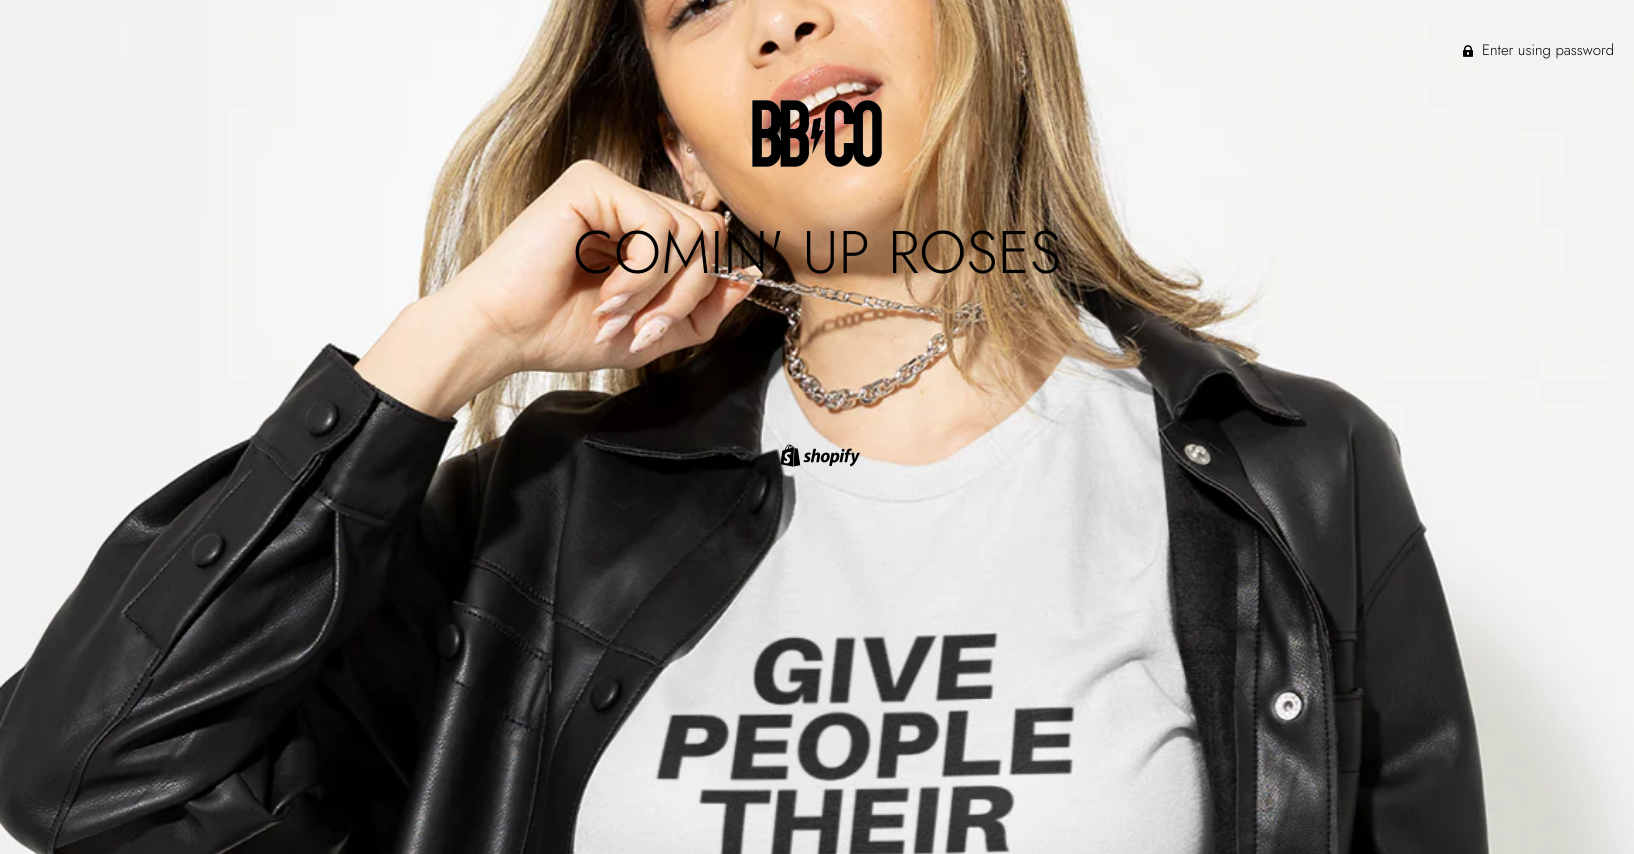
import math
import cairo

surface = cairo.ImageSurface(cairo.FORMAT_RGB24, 1634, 854)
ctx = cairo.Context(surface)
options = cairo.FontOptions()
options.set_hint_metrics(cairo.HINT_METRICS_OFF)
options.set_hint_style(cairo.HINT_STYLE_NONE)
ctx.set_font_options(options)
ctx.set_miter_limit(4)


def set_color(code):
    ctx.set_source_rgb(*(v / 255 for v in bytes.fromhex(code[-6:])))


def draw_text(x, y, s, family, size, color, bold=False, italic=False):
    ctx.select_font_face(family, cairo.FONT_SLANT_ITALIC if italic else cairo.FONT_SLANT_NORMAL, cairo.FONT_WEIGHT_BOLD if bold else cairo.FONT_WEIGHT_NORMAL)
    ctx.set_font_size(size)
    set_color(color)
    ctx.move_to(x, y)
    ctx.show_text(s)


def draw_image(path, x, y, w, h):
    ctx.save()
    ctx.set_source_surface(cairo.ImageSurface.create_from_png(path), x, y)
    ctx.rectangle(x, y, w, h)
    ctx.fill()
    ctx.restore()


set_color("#ffffff")
ctx.paint()
draw_image("assets/img1.png", 0, 0, 1634, 854)
draw_image("assets/img2.png", 1463, 45, 10, 12)
draw_text(1482, 55, "Enter using password", "Jost Light", 15, "#000000")
draw_image("assets/img3.png", 752, 100, 130, 67)
draw_text(573, 273, "COMIN' UP ROSES", "Jost Light", 60, "#000000")
draw_image("assets/img4.png", 780, 444, 80, 23)
surface.write_to_png("output.png")
